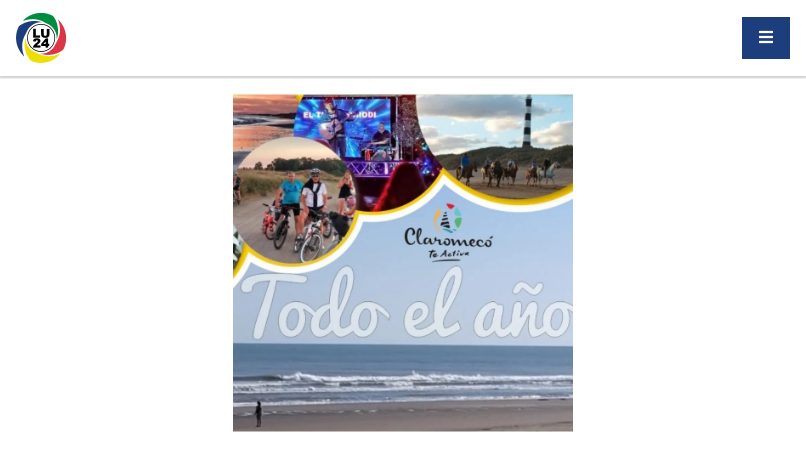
import math
import cairo

surface = cairo.ImageSurface(cairo.FORMAT_RGB24, 806, 468)
ctx = cairo.Context(surface)
options = cairo.FontOptions()
options.set_hint_metrics(cairo.HINT_METRICS_OFF)
options.set_hint_style(cairo.HINT_STYLE_NONE)
ctx.set_font_options(options)
ctx.set_miter_limit(4)


def set_color(code):
    ctx.set_source_rgb(*(v / 255 for v in bytes.fromhex(code[-6:])))


def fill_rect(x, y, w, h, color):
    set_color(color)
    ctx.rectangle(x, y, w, h)
    ctx.fill()


def rounded_rect(x, y, w, h, r):
    ctx.new_sub_path()
    for i, (u, v) in enumerate([(x + w - r, y + h - r), (x + r, y + h - r), (x + r, y + r), (x + w - r, y + r)]):
        ctx.arc(u, v, r, i * math.pi / 2, (i + 1) * math.pi / 2)
    ctx.close_path()


def draw_shadow(x, y, w, h, r, blur, alpha):
    ctx.push_group_with_content(cairo.CONTENT_ALPHA)
    ctx.set_operator(cairo.OPERATOR_SOURCE)
    for i in range(15, -16, -2):
        e = blur * i / 6
        if min(w, h) + 2 * e > 0:
            ctx.set_source_rgba(0, 0, 0, alpha * math.erfc((i - 1) / 8.5) / 2)
            rounded_rect(x - e, y - e, w + 2 * e, h + 2 * e, max(0, min(r + e + blur * .6, min(w, h) / 2 + e)))
            ctx.fill()
    ctx.mask(ctx.pop_group())


def draw_image(path, x, y, w, h):
    ctx.save()
    ctx.set_source_surface(cairo.ImageSurface.create_from_png(path), x, y)
    ctx.rectangle(x, y, w, h)
    ctx.fill()
    ctx.restore()


set_color("#ffffff")
ctx.paint()
ctx.save()
ctx.rectangle(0, 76, 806, 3)
ctx.clip()
set_color("#000000")
draw_shadow(0, 2, 806, 76, 0, 1, 0.2)
ctx.restore()
draw_image("assets/img1.png", 16, 13, 50, 50)
fill_rect(742, 17, 48, 42, "#1c3e7d")
draw_image("assets/img2.png", 759, 30, 14, 14)
draw_image("assets/img3.png", 233, 92, 340, 340)
surface.write_to_png("output.png")
